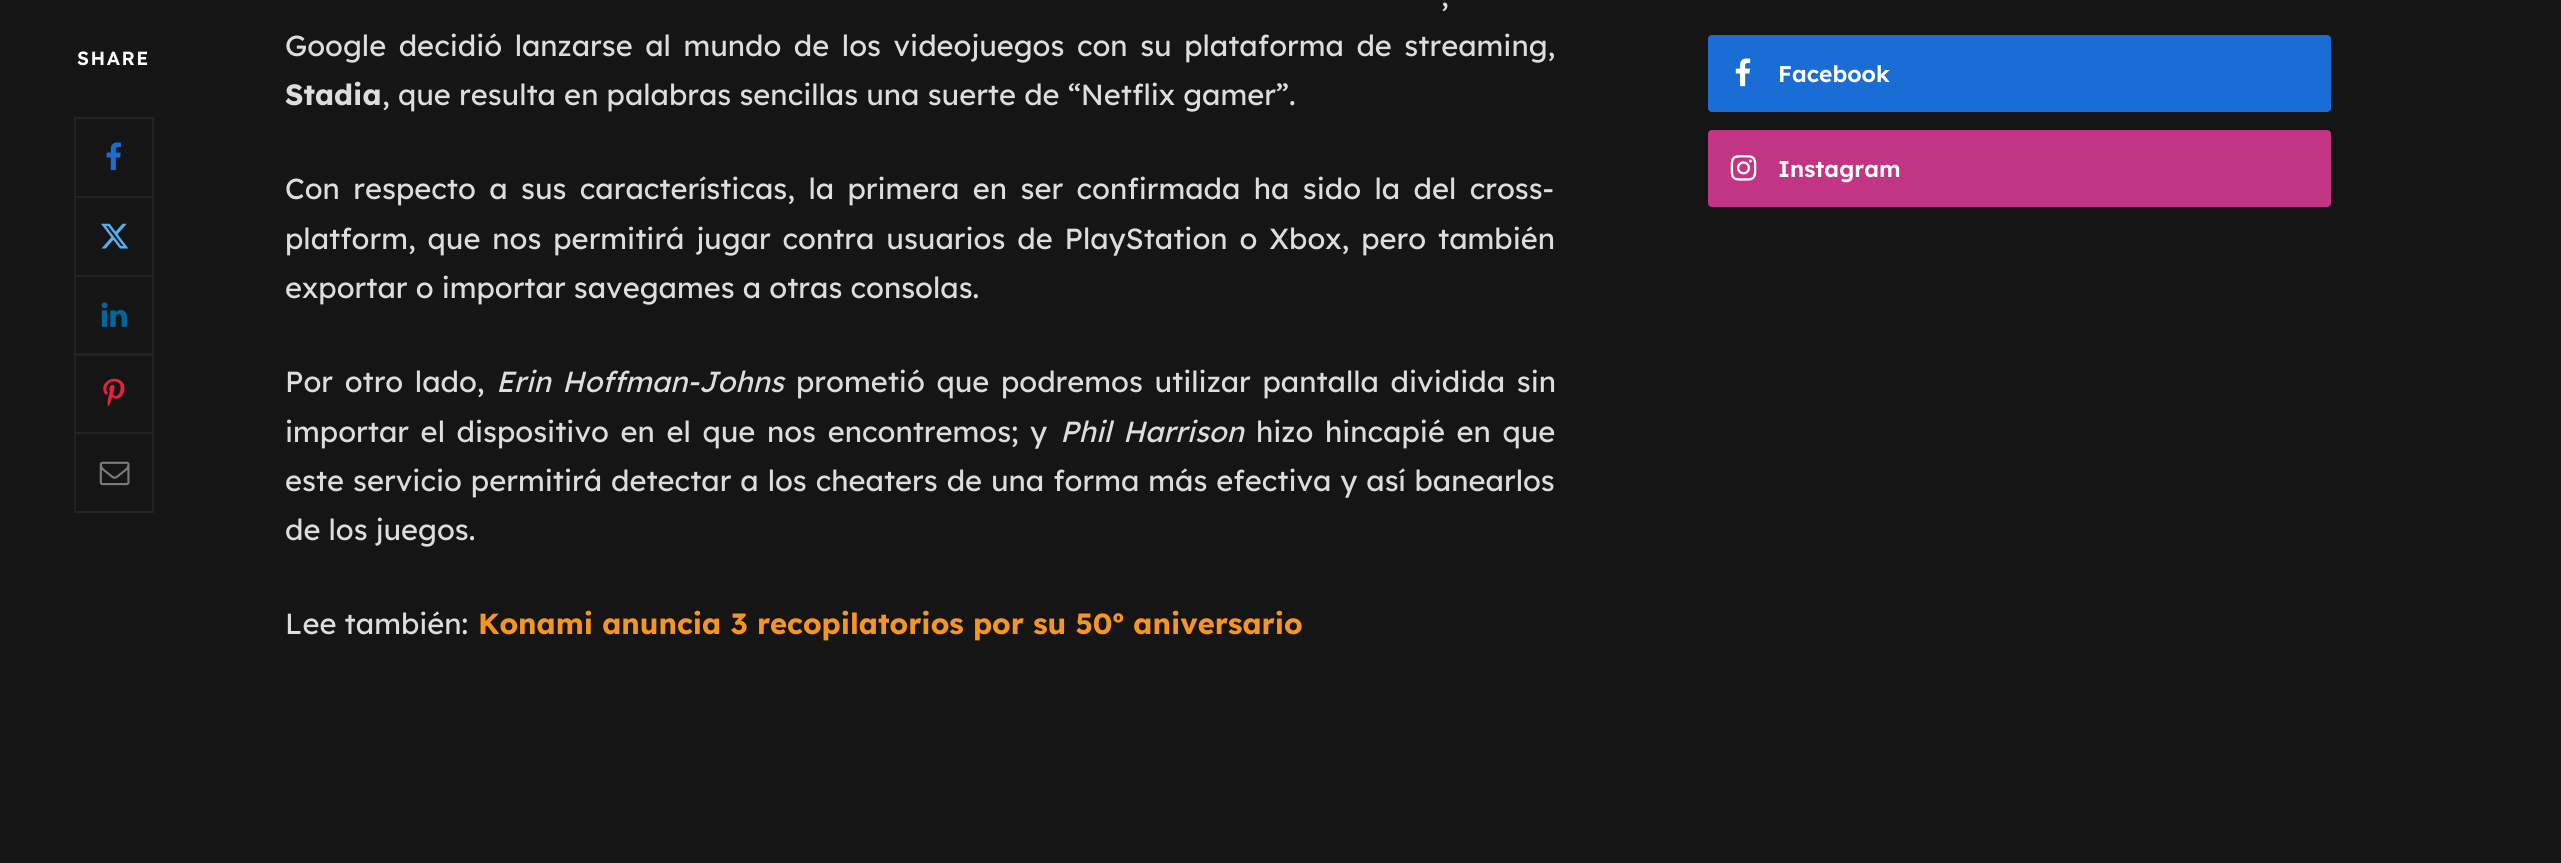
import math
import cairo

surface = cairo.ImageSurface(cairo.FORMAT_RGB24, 2561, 863)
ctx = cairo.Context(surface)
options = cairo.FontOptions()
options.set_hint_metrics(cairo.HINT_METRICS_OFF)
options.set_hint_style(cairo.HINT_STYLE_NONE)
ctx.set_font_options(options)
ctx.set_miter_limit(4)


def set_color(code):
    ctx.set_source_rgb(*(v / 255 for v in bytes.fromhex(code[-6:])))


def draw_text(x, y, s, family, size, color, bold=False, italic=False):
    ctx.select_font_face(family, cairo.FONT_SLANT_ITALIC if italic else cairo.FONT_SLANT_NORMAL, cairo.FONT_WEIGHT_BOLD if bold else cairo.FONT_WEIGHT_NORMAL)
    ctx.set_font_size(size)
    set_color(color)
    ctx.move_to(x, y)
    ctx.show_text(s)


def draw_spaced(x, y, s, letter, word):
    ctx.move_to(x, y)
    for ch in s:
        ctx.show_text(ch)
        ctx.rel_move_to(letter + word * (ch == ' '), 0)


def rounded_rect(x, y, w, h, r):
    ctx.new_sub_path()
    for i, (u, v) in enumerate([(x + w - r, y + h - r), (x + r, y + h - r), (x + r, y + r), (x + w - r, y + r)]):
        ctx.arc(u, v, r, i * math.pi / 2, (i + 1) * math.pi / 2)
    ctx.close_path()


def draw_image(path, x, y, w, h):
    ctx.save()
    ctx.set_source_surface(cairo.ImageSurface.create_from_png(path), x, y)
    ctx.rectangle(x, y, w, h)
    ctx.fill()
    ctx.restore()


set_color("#151516")
ctx.paint()
ctx.select_font_face("Lexend Deca SemiBold")
ctx.set_font_size(19)
set_color("#ffffff")
draw_spaced(77, 65, "SHARE", 1.5, 0)
ctx.rectangle(75, 118, 78, 79)
set_color("#222222")
ctx.stroke()
draw_image("assets/img1.png", 106, 142, 15, 29)
ctx.rectangle(75, 197, 78, 79)
ctx.stroke()
draw_image("assets/img2.png", 101, 223, 28, 26)
ctx.rectangle(75, 276, 78, 78)
ctx.stroke()
draw_image("assets/img3.png", 101, 302, 26, 25)
ctx.rectangle(75, 355, 78, 78)
ctx.stroke()
draw_image("assets/img4.png", 103, 378, 22, 29)
ctx.rectangle(75, 433, 78, 79)
ctx.stroke()
draw_image("assets/img5.png", 99, 461, 31, 25)
ctx.select_font_face("Lexend Deca")
ctx.set_font_size(29.05)
set_color("#dddddd")
draw_spaced(1441, 6, ",", 0, 1)
draw_spaced(285, 56, "Google decidió lanzarse al mundo de los videojuegos con su plataforma de streaming,", 0, 4.4)
draw_text(285, 105, "Stadia", "Lexend Deca", 29.05, "#dddddd", bold=True)
draw_text(382, 105, ", que resulta en palabras sencillas una suerte de “Netflix gamer”.", "Lexend Deca", 29.05, "#dddddd")
draw_spaced(285, 199, "Con respecto a sus características, la primera en ser confirmada ha sido la del cross-", 0, 5.25)
draw_spaced(285, 249, "platform, que nos permitirá jugar contra usuarios de PlayStation o Xbox, pero también", 0, 3.75)
draw_text(285, 298, "exportar o importar savegames a otras consolas.", "Lexend Deca", 29.05, "#dddddd")
draw_spaced(285, 392, "Por otro lado,", 0, 3.5)
ctx.select_font_face("Lexend Deca", cairo.FONT_SLANT_ITALIC)
draw_spaced(496, 392, "Erin Hoffman-Johns", 0, 3)
ctx.select_font_face("Lexend Deca")
draw_spaced(796, 392, "prometió que podremos utilizar pantalla dividida sin", 0, 3.5)
draw_spaced(285, 442, "importar el dispositivo en el que nos encontremos; y", 0, 3.5)
ctx.select_font_face("Lexend Deca", cairo.FONT_SLANT_ITALIC)
draw_spaced(1060, 442, "Phil Harrison", 0, 3.5)
ctx.select_font_face("Lexend Deca")
draw_spaced(1256, 442, "hizo hincapié en que", 0, 3.5)
draw_spaced(285, 491, "este servicio permitirá detectar a los cheaters de una forma más efectiva y así banearlos", 0, 0.8)
draw_text(285, 540, "de los juegos.", "Lexend Deca", 29.05, "#dddddd")
draw_text(285, 634, "Lee también:", "Lexend Deca", 29.05, "#dddddd")
draw_text(478, 634, "Konami anuncia 3 recopilatorios por su 50º aniversario", "Lexend Deca", 29.05, "#f79521", bold=True)
set_color("#1a6dd4")
rounded_rect(1708, 35, 623, 77, 4)
ctx.fill()
draw_image("assets/img6.png", 1735, 58, 16, 29)
draw_text(1778, 82, "Facebook", "Lexend Deca SemiBold", 22.75, "#ffffff")
set_color("#c13584")
rounded_rect(1708, 130, 623, 77, 4)
ctx.fill()
draw_image("assets/img7.png", 1730, 155, 27, 26)
draw_text(1778, 177, "Instagram", "Lexend Deca SemiBold", 22.75, "#ffffff")
surface.write_to_png("output.png")
